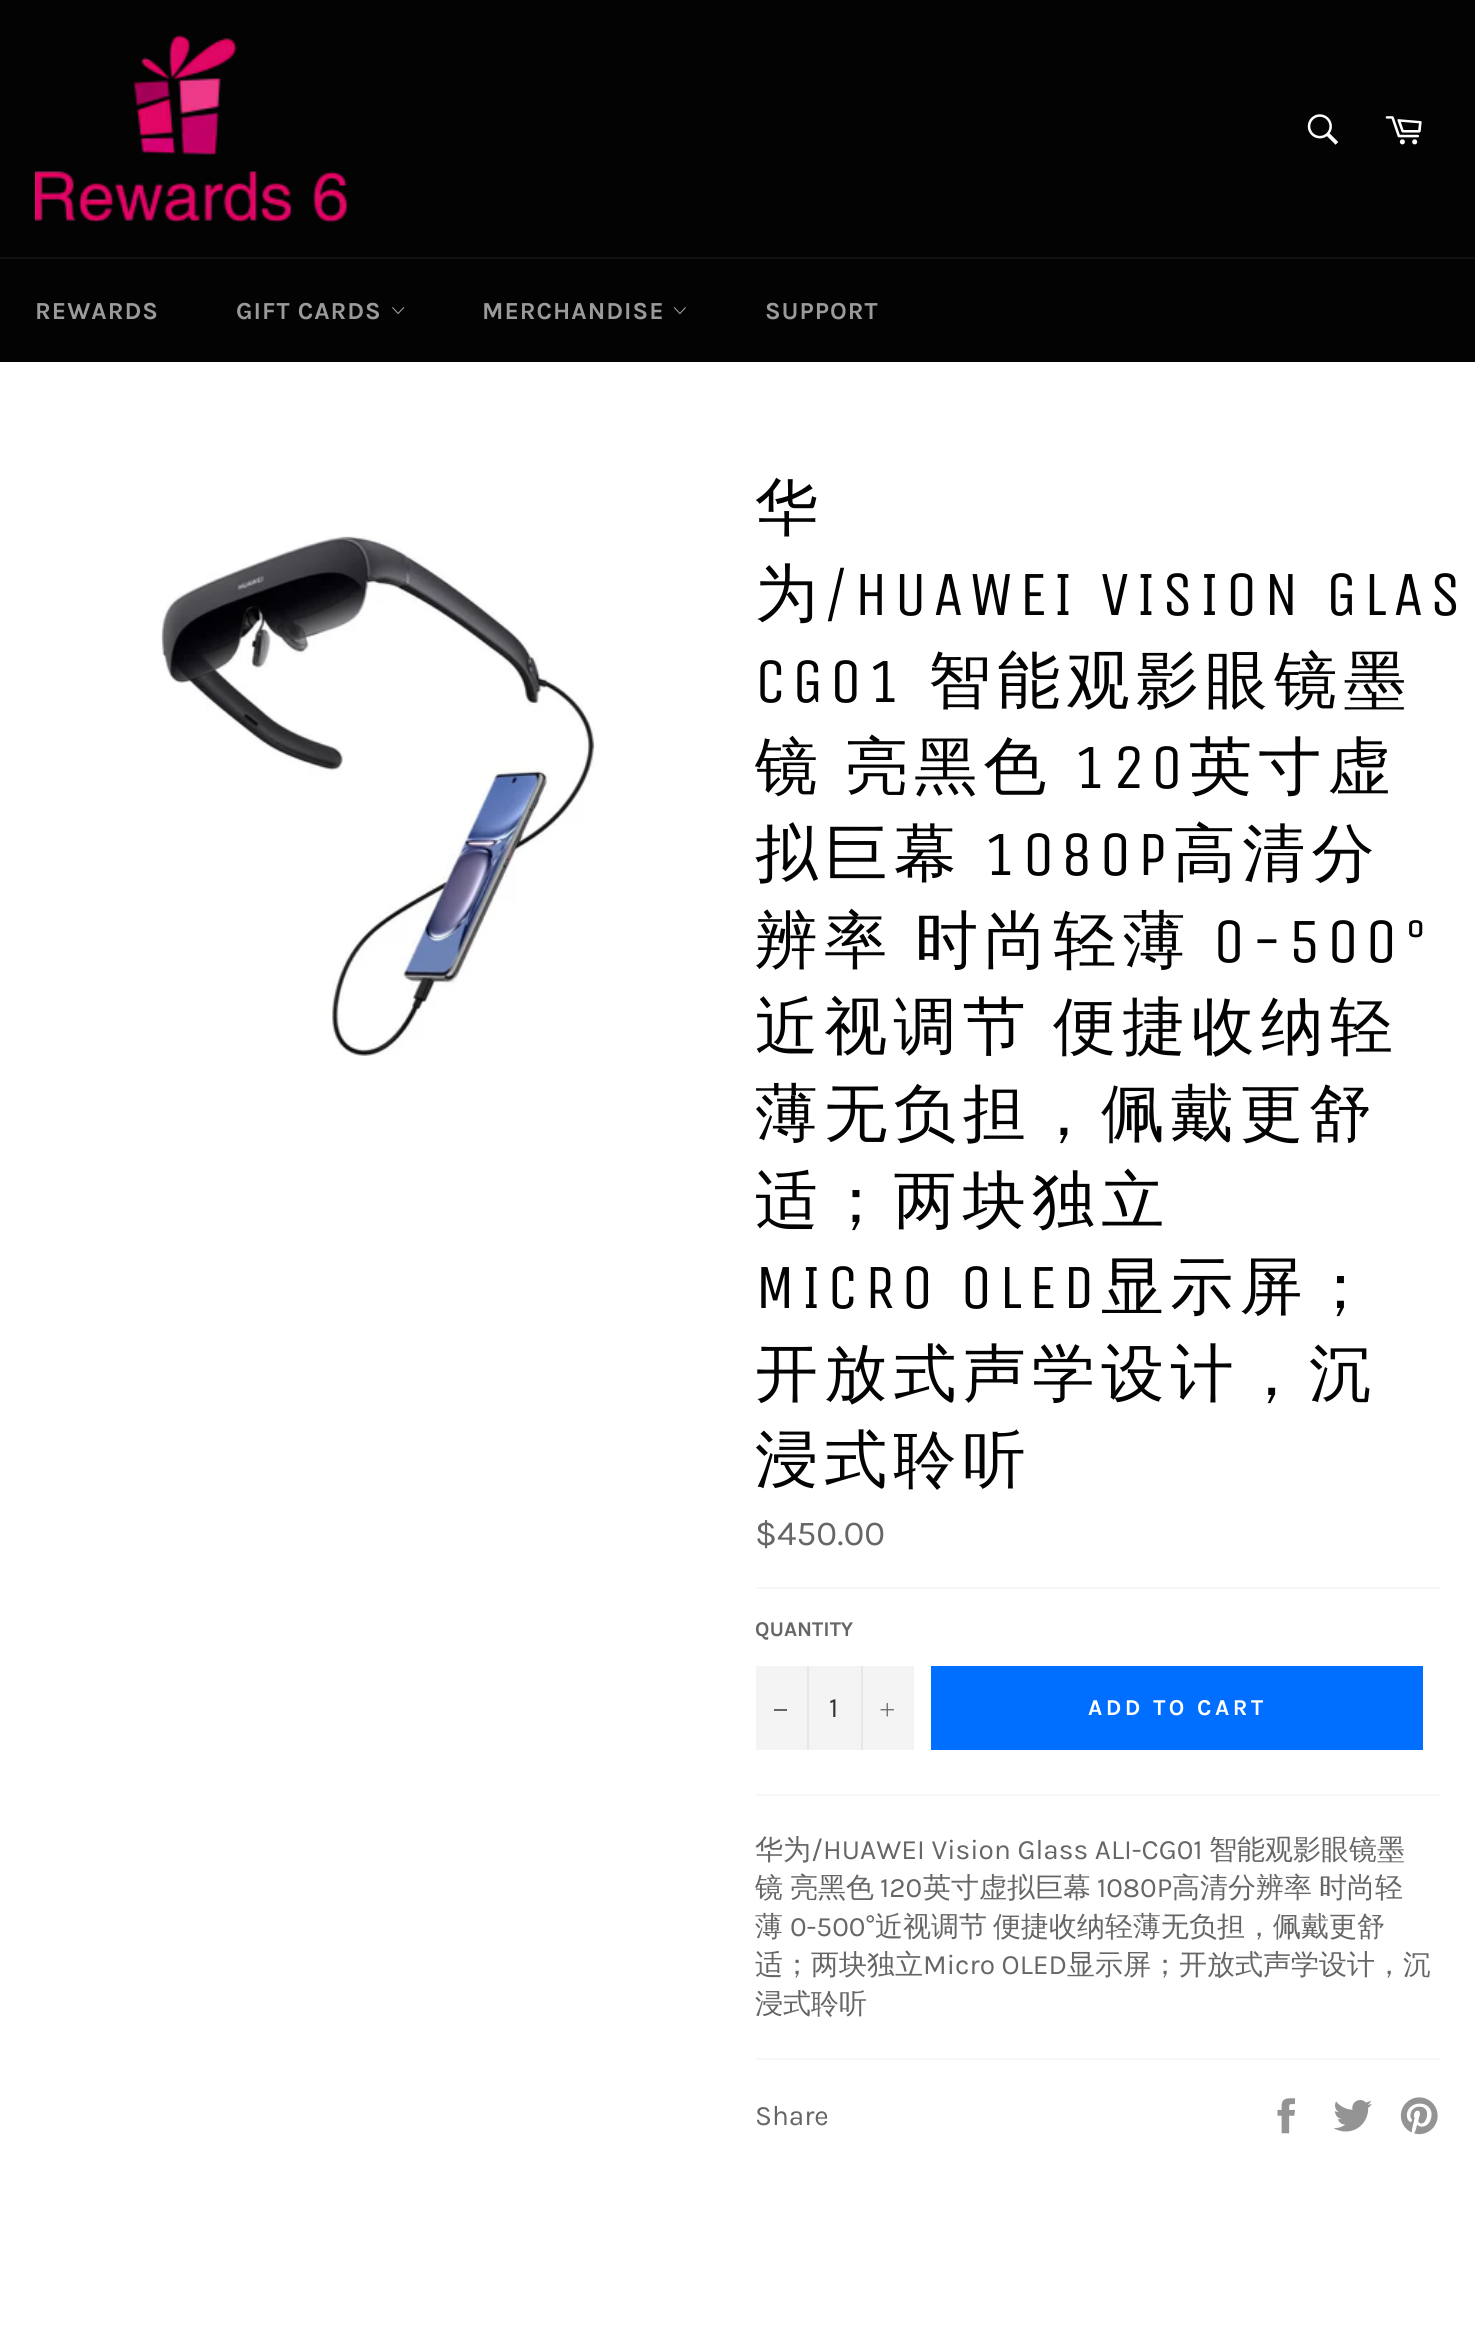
import math
import cairo

surface = cairo.ImageSurface(cairo.FORMAT_RGB24, 1475, 2327)
ctx = cairo.Context(surface)
options = cairo.FontOptions()
options.set_hint_metrics(cairo.HINT_METRICS_OFF)
options.set_hint_style(cairo.HINT_STYLE_NONE)
ctx.set_font_options(options)
ctx.set_miter_limit(4)


def set_color(code):
    ctx.set_source_rgb(*(v / 255 for v in bytes.fromhex(code[-6:])))


def draw_text(x, y, s, family, size, color, bold=False, italic=False):
    ctx.select_font_face(family, cairo.FONT_SLANT_ITALIC if italic else cairo.FONT_SLANT_NORMAL, cairo.FONT_WEIGHT_BOLD if bold else cairo.FONT_WEIGHT_NORMAL)
    ctx.set_font_size(size)
    set_color(color)
    ctx.move_to(x, y)
    ctx.show_text(s)


def draw_spaced(x, y, s, letter, word):
    ctx.move_to(x, y)
    for ch in s:
        ctx.show_text(ch)
        ctx.rel_move_to(letter + word * (ch == ' '), 0)


def fill_rect(x, y, w, h, color):
    set_color(color)
    ctx.rectangle(x, y, w, h)
    ctx.fill()


def draw_image(path, x, y, w, h):
    ctx.save()
    ctx.set_source_surface(cairo.ImageSurface.create_from_png(path), x, y)
    ctx.rectangle(x, y, w, h)
    ctx.fill()
    ctx.restore()


set_color("#030303")
ctx.paint()
draw_image("assets/img1.png", 35, 35, 312, 188)
draw_image("assets/img2.png", 1307, 114, 32, 31)
draw_image("assets/img3.png", 1385, 116, 37, 29)
fill_rect(0, 257, 1475, 2, "#101010")
ctx.select_font_face("Karla", cairo.FONT_SLANT_NORMAL, cairo.FONT_WEIGHT_BOLD)
ctx.set_font_size(24.5)
set_color("#9a9a9a")
draw_spaced(35, 319, "REWARDS", 1, 0)
draw_spaced(236, 319, "GIFT CARDS", 1, 0)
draw_image("assets/img4.png", 392, 307, 13, 8)
draw_spaced(482, 319, "MERCHANDISE", 1, 0)
draw_image("assets/img5.png", 673, 307, 13, 8)
draw_spaced(765, 319, "SUPPORT", 1, 0)
fill_rect(0, 362, 1475, 1965, "#ffffff")
draw_image("assets/img6.png", 160, 535, 435, 521)
ctx.select_font_face("WenQuanYi Zen Hei Medium")
ctx.set_font_size(63)
set_color("#030303")
draw_spaced(755, 529, "华", 6.25, 0)
draw_spaced(755, 615, "为", 6.25, 0)
ctx.select_font_face("Unica One")
draw_spaced(824, 615, "/HUAWEI VISION GLAS", 6.25, 0)
draw_spaced(755, 702, "CG01", 6.25, 0)
ctx.select_font_face("WenQuanYi Zen Hei Medium")
draw_spaced(928, 702, "智能观影眼镜墨", 6.25, 0)
draw_spaced(755, 788, "镜", 6.25, 0)
draw_spaced(845, 788, "亮黑色", 6.25, 0)
ctx.select_font_face("Unica One")
draw_spaced(1074, 788, "120", 6.25, 0)
ctx.select_font_face("WenQuanYi Zen Hei Medium")
draw_spaced(1189, 788, "英寸虚", 6.25, 0)
draw_spaced(755, 875, "拟巨幕", 6.25, 0)
ctx.select_font_face("Unica One")
draw_spaced(984, 875, "1080P", 6.25, 0)
ctx.select_font_face("WenQuanYi Zen Hei Medium")
draw_spaced(1173, 875, "高清分", 6.25, 0)
draw_spaced(755, 962, "辨率", 6.25, 0)
draw_spaced(915, 962, "时尚轻薄", 6.25, 0)
ctx.select_font_face("Unica One")
draw_spaced(1213, 962, "0-500°", 6.25, 0)
ctx.select_font_face("WenQuanYi Zen Hei Medium")
draw_spaced(755, 1048, "近视调节", 6.25, 0)
draw_spaced(1053, 1048, "便捷收纳轻", 6.25, 0)
draw_spaced(755, 1135, "薄无负担，佩戴更舒", 6.25, 0)
draw_spaced(755, 1222, "适；两块独立", 6.25, 0)
ctx.select_font_face("Unica One")
draw_spaced(755, 1308, "MICRO OLED", 6.25, 0)
ctx.select_font_face("WenQuanYi Zen Hei Medium")
draw_spaced(1101, 1308, "显示屏；", 6.25, 0)
draw_spaced(755, 1395, "开放式声学设计，沉", 6.25, 0)
draw_spaced(755, 1481, "浸式聆听", 6.25, 0)
draw_text(755, 1545, "$450.00", "Karla", 35, "#666666")
fill_rect(756, 1587, 684, 2, "#f7f7f7")
draw_text(755, 1636, "QUANTITY", "Karla", 21, "#666666", bold=True)
fill_rect(756, 1666, 158, 84, "#f4f4f4")
fill_rect(807, 1666, 2, 84, "#e7e7e7")
fill_rect(774, 1709, 13, 2, "#666666")
draw_text(829, 1717, "1", "Karla", 28, "#333333")
fill_rect(861, 1666, 2, 84, "#e7e7e7")
draw_image("assets/img7.png", 880, 1703, 14, 14)
fill_rect(931, 1666, 492, 84, "#006eff")
ctx.select_font_face("Karla", cairo.FONT_SLANT_NORMAL, cairo.FONT_WEIGHT_BOLD)
ctx.set_font_size(22.75)
set_color("#ffffff")
draw_spaced(1088, 1715, "ADD TO CART", 3.5, 0)
fill_rect(756, 1794, 684, 2, "#f7f7f7")
draw_text(755, 1859, "华为", "WenQuanYi Zen Hei Medium", 28, "#666666")
draw_text(811, 1859, "/HUAWEI Vision Glass ALI-CG01", "Karla", 28, "#666666")
draw_text(1209, 1859, "智能观影眼镜墨", "WenQuanYi Zen Hei Medium", 28, "#666666")
draw_text(755, 1897, "镜", "WenQuanYi Zen Hei Medium", 28, "#666666")
draw_text(790, 1897, "亮黑色", "WenQuanYi Zen Hei Medium", 28, "#666666")
draw_text(880, 1897, "120", "Karla", 28, "#666666")
draw_text(923, 1897, "英寸虚拟巨幕", "WenQuanYi Zen Hei Medium", 28, "#666666")
draw_text(1097, 1897, "1080P", "Karla", 28, "#666666")
draw_text(1172, 1897, "高清分辨率", "WenQuanYi Zen Hei Medium", 28, "#666666")
draw_text(1319, 1897, "时尚轻", "WenQuanYi Zen Hei Medium", 28, "#666666")
draw_text(755, 1936, "薄", "WenQuanYi Zen Hei Medium", 28, "#666666")
draw_text(790, 1936, "0-500°", "Karla", 28, "#666666")
draw_text(875, 1936, "近视调节", "WenQuanYi Zen Hei Medium", 28, "#666666")
draw_text(993, 1936, "便捷收纳轻薄无负担，佩戴更舒", "WenQuanYi Zen Hei Medium", 28, "#666666")
draw_text(755, 1974, "适；两块独立", "WenQuanYi Zen Hei Medium", 28, "#666666")
draw_text(923, 1974, "Micro OLED", "Karla", 28, "#666666")
draw_text(1067, 1974, "显示屏；开放式声学设计，沉", "WenQuanYi Zen Hei Medium", 28, "#666666")
draw_text(755, 2013, "浸式聆听", "WenQuanYi Zen Hei Medium", 28, "#666666")
fill_rect(756, 2058, 684, 2, "#f7f7f7")
draw_text(755, 2125, "Share", "Karla", 28, "#666666")
draw_image("assets/img8.png", 1277, 2098, 18, 36)
draw_image("assets/img9.png", 1333, 2100, 39, 32)
draw_image("assets/img10.png", 1400, 2097, 38, 38)
surface.write_to_png("output.png")
